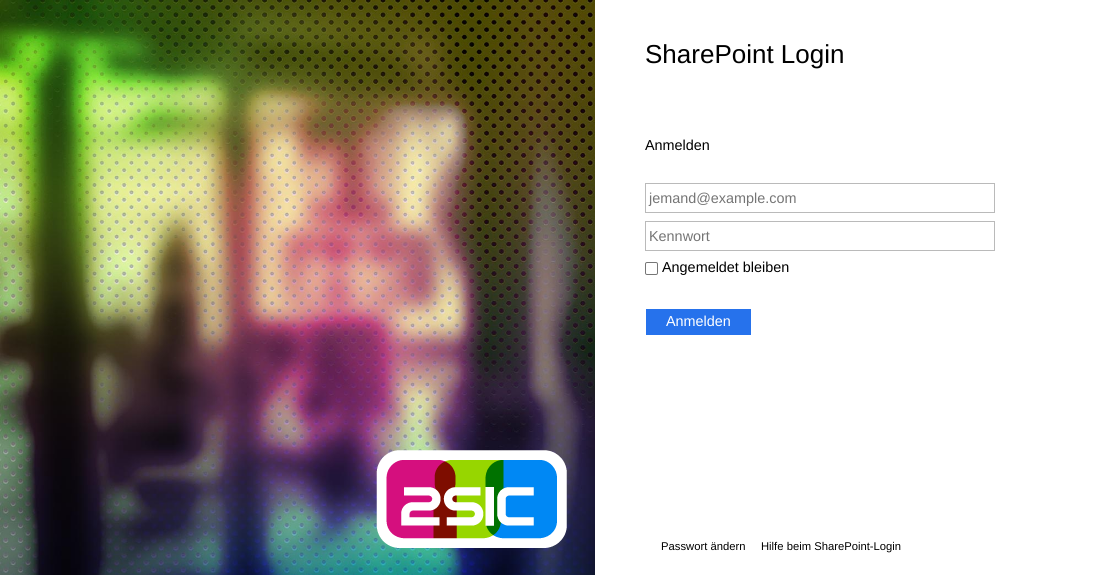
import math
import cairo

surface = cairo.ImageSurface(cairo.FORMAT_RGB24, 1095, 575)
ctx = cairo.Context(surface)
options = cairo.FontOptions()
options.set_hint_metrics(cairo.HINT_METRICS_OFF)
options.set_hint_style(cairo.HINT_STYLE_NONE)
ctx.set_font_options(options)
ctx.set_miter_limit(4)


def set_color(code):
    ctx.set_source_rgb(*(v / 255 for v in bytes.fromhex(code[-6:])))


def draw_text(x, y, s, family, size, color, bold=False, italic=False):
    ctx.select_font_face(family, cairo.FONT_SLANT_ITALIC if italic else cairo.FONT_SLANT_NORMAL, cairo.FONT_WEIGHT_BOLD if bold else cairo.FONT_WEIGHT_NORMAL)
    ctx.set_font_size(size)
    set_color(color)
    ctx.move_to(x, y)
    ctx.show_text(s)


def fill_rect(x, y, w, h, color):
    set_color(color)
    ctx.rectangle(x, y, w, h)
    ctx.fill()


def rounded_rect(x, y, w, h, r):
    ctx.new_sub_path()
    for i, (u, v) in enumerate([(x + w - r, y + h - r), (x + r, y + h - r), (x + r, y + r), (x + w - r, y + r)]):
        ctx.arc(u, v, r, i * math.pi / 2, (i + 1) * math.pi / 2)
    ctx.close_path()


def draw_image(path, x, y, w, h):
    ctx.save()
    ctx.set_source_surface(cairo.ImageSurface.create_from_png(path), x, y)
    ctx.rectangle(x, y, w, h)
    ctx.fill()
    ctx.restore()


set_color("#ffffff")
ctx.paint()
draw_image("assets/img1.png", 0, 0, 595, 575)
draw_image("assets/img2.png", 376, 450, 191, 98)
draw_text(645, 63, "SharePoint Login", "Liberation Sans", 26, "#000000")
draw_text(645, 150, "Anmelden", "Liberation Sans", 14.4, "#000000")
ctx.rectangle(645.5, 183.5, 349, 29)
set_color("#bababa")
ctx.set_line_width(1)
ctx.stroke()
draw_text(649, 203, "jemand@example.com", "Liberation Sans", 14.4, "#757575")
ctx.rectangle(645.5, 221.5, 349, 29)
set_color("#bababa")
ctx.stroke()
draw_text(649, 241, "Kennwort", "Liberation Sans", 14.4, "#757575")
rounded_rect(645.5, 262.5, 12, 12, 1.5)
set_color("#767676")
ctx.stroke()
draw_text(662, 272, "Angemeldet bleiben", "Liberation Sans", 14.4, "#000000")
fill_rect(646, 309, 105, 26, "#2672ec")
draw_text(666, 326, "Anmelden", "Liberation Sans", 14.4, "#ffffff")
draw_text(661, 550, "Passwort ändern", "Liberation Sans", 11.25, "#000000")
draw_text(761, 550, "Hilfe beim SharePoint-Login", "Liberation Sans", 11.25, "#000000")
surface.write_to_png("output.png")
